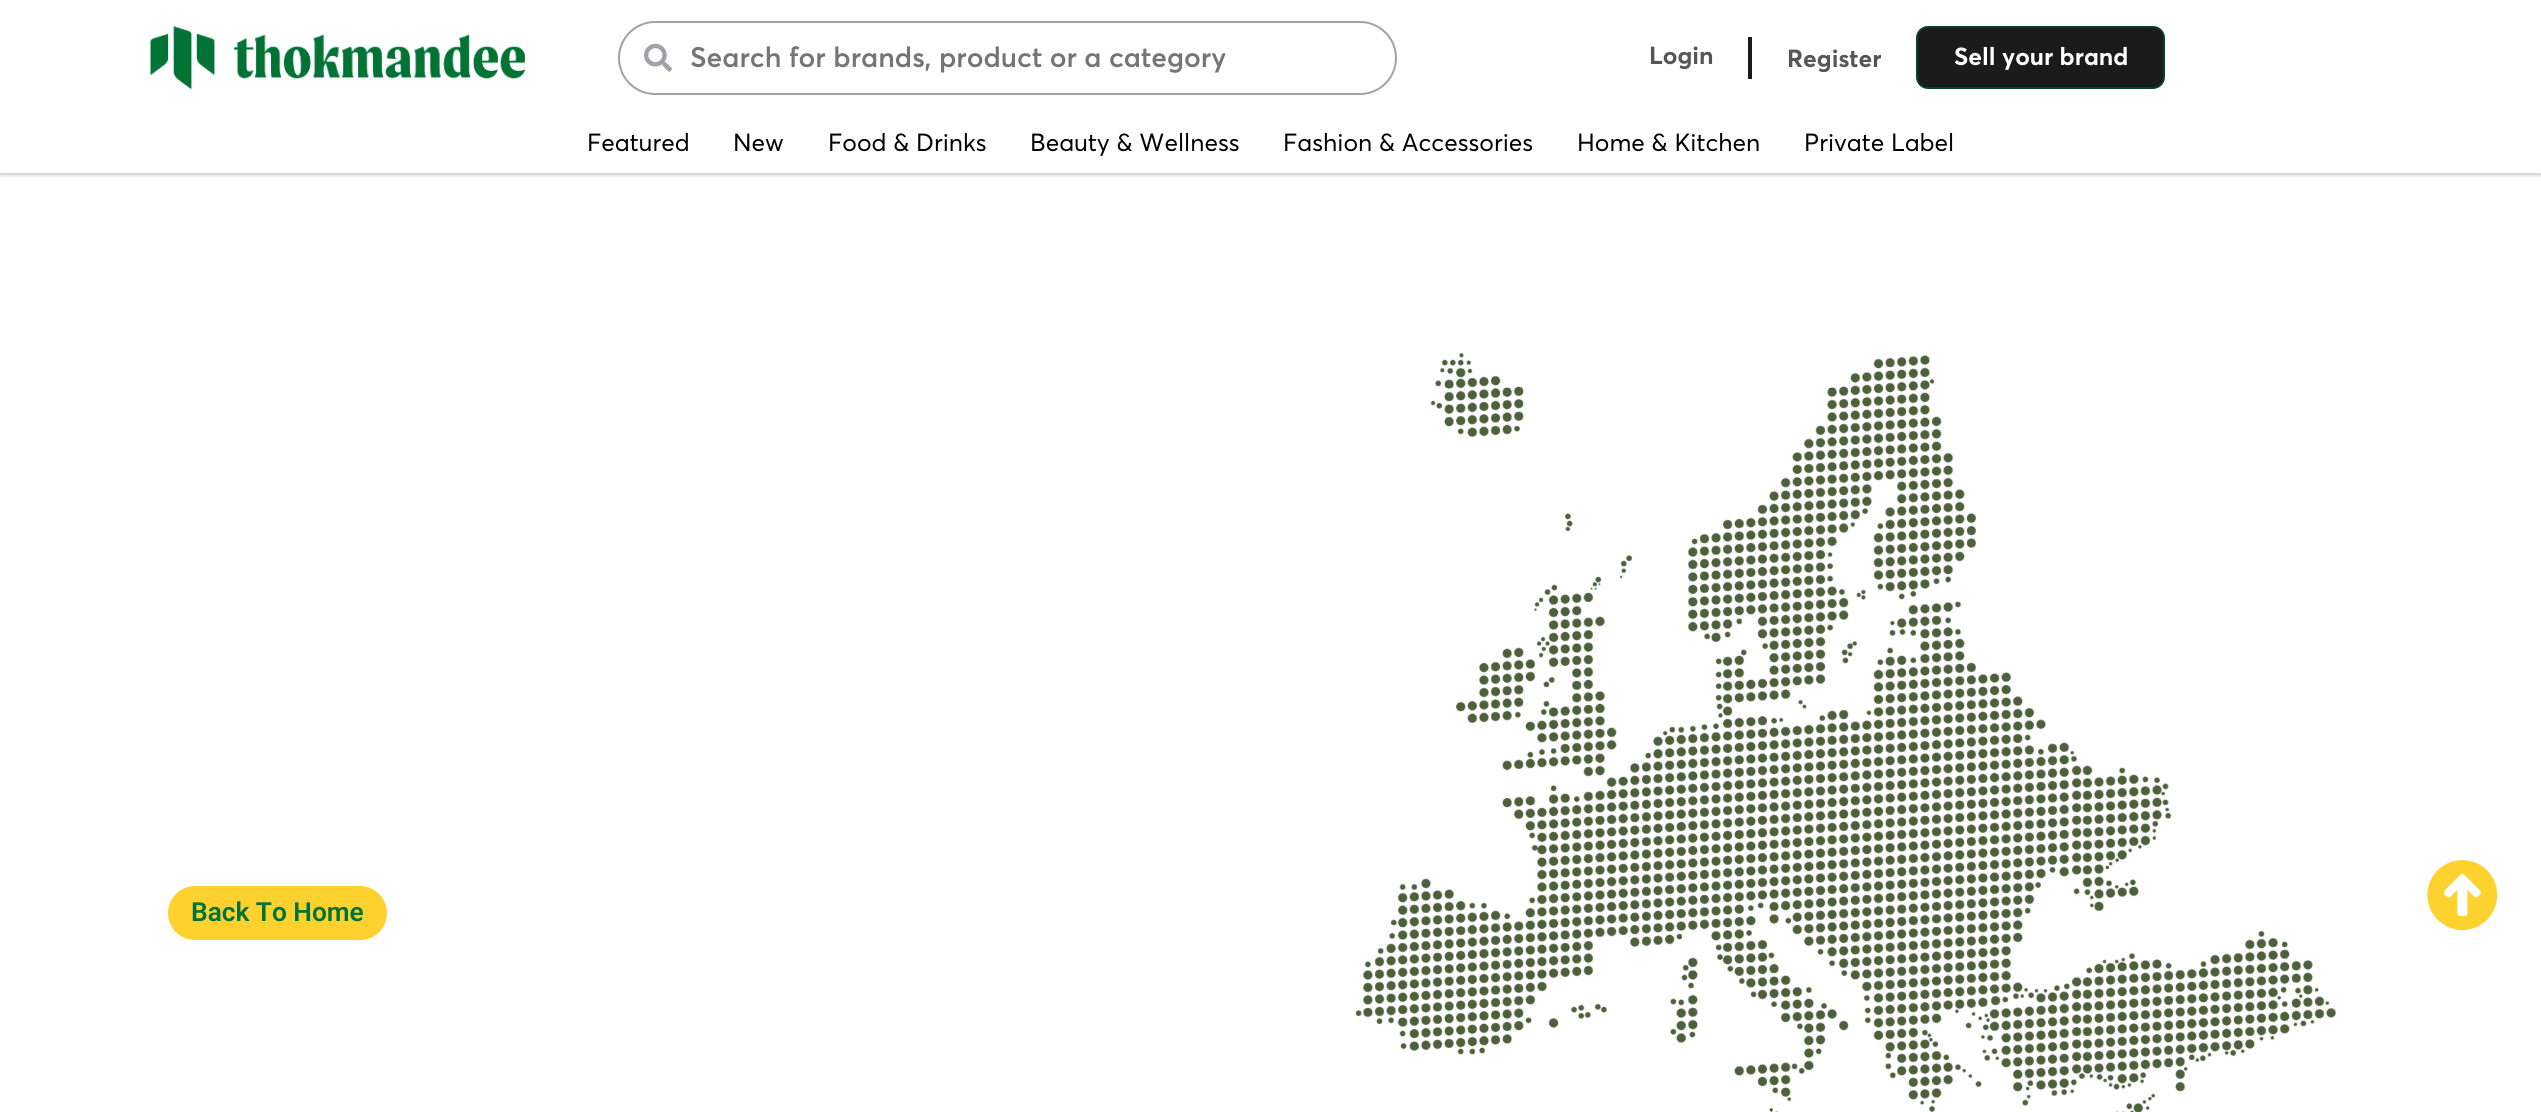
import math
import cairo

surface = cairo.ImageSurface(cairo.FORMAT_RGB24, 2541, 1112)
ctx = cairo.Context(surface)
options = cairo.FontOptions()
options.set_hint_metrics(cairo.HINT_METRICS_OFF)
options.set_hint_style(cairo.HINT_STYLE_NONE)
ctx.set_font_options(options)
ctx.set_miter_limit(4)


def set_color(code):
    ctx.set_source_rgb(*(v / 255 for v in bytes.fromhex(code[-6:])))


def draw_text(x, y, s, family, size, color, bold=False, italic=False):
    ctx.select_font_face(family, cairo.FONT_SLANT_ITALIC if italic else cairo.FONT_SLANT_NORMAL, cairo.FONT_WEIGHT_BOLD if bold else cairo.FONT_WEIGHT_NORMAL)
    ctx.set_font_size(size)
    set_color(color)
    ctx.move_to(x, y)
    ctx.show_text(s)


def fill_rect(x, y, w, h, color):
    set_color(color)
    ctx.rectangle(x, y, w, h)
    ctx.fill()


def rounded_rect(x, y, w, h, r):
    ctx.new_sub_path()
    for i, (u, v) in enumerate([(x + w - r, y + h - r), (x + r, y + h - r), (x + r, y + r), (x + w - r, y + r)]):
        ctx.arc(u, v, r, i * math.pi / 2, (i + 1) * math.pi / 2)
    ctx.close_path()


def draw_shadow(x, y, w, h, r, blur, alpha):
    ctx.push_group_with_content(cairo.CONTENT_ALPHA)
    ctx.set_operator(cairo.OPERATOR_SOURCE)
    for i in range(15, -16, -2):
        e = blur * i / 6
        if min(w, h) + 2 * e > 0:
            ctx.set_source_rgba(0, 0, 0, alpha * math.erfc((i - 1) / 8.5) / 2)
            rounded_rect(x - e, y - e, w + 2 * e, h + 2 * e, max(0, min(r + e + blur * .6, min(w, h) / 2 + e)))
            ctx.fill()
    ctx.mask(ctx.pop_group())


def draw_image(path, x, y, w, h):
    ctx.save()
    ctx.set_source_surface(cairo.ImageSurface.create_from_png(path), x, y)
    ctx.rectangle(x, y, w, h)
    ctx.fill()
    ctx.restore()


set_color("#ffffff")
ctx.paint()
ctx.save()
ctx.rectangle(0, 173, 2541, 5)
ctx.clip()
set_color("#8b8b8b")
draw_shadow(0, 117, 2541, 58, 0, 2, 0.5)
ctx.restore()
fill_rect(0, 114, 2541, 2, "#ffffff")
draw_image("assets/img1.png", 150, 25, 375, 65)
rounded_rect(619, 22, 777, 72, 36)
set_color("#a1a1aa")
ctx.stroke()
draw_image("assets/img2.png", 644, 43, 28, 29)
draw_text(690, 67, "Search for brands, product or a category", "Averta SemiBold", 28, "#757575")
draw_text(1649, 64, "Login", "Averta", 24.5, "#565656", bold=True)
fill_rect(1748, 37, 4, 42, "#1b1b1b")
draw_text(1787, 67, "Register", "Averta", 24.5, "#565656", bold=True)
set_color("#1b1b1b")
rounded_rect(1917, 27, 247, 61, 11)
ctx.fill_preserve()
set_color("#06412d")
ctx.stroke()
draw_text(1954, 65, "Sell your brand", "Averta", 24.5, "#ffffff", bold=True)
draw_text(587, 151, "Featured", "Averta", 24.5, "#000000")
draw_text(733, 151, "New", "Averta", 24.5, "#000000")
draw_text(828, 151, "Food & Drinks", "Averta", 24.5, "#000000")
draw_text(1030, 151, "Beauty & Wellness", "Averta", 24.5, "#000000")
draw_text(1283, 151, "Fashion & Accessories", "Averta", 24.5, "#000000")
draw_text(1577, 151, "Home & Kitchen", "Averta", 24.5, "#000000")
draw_text(1804, 151, "Private Label", "Averta", 24.5, "#000000")
set_color("#fed12e")
rounded_rect(170.5, 888.5, 214, 49, 24.5)
ctx.fill_preserve()
ctx.set_line_width(5)
ctx.stroke()
draw_text(191, 921, "Back To Home", "Roboto SemiBold", 26.25, "#007236")
draw_image("assets/img3.png", 1355, 352, 982, 760)
draw_image("assets/img4.png", 2427, 860, 71, 71)
surface.write_to_png("output.png")
